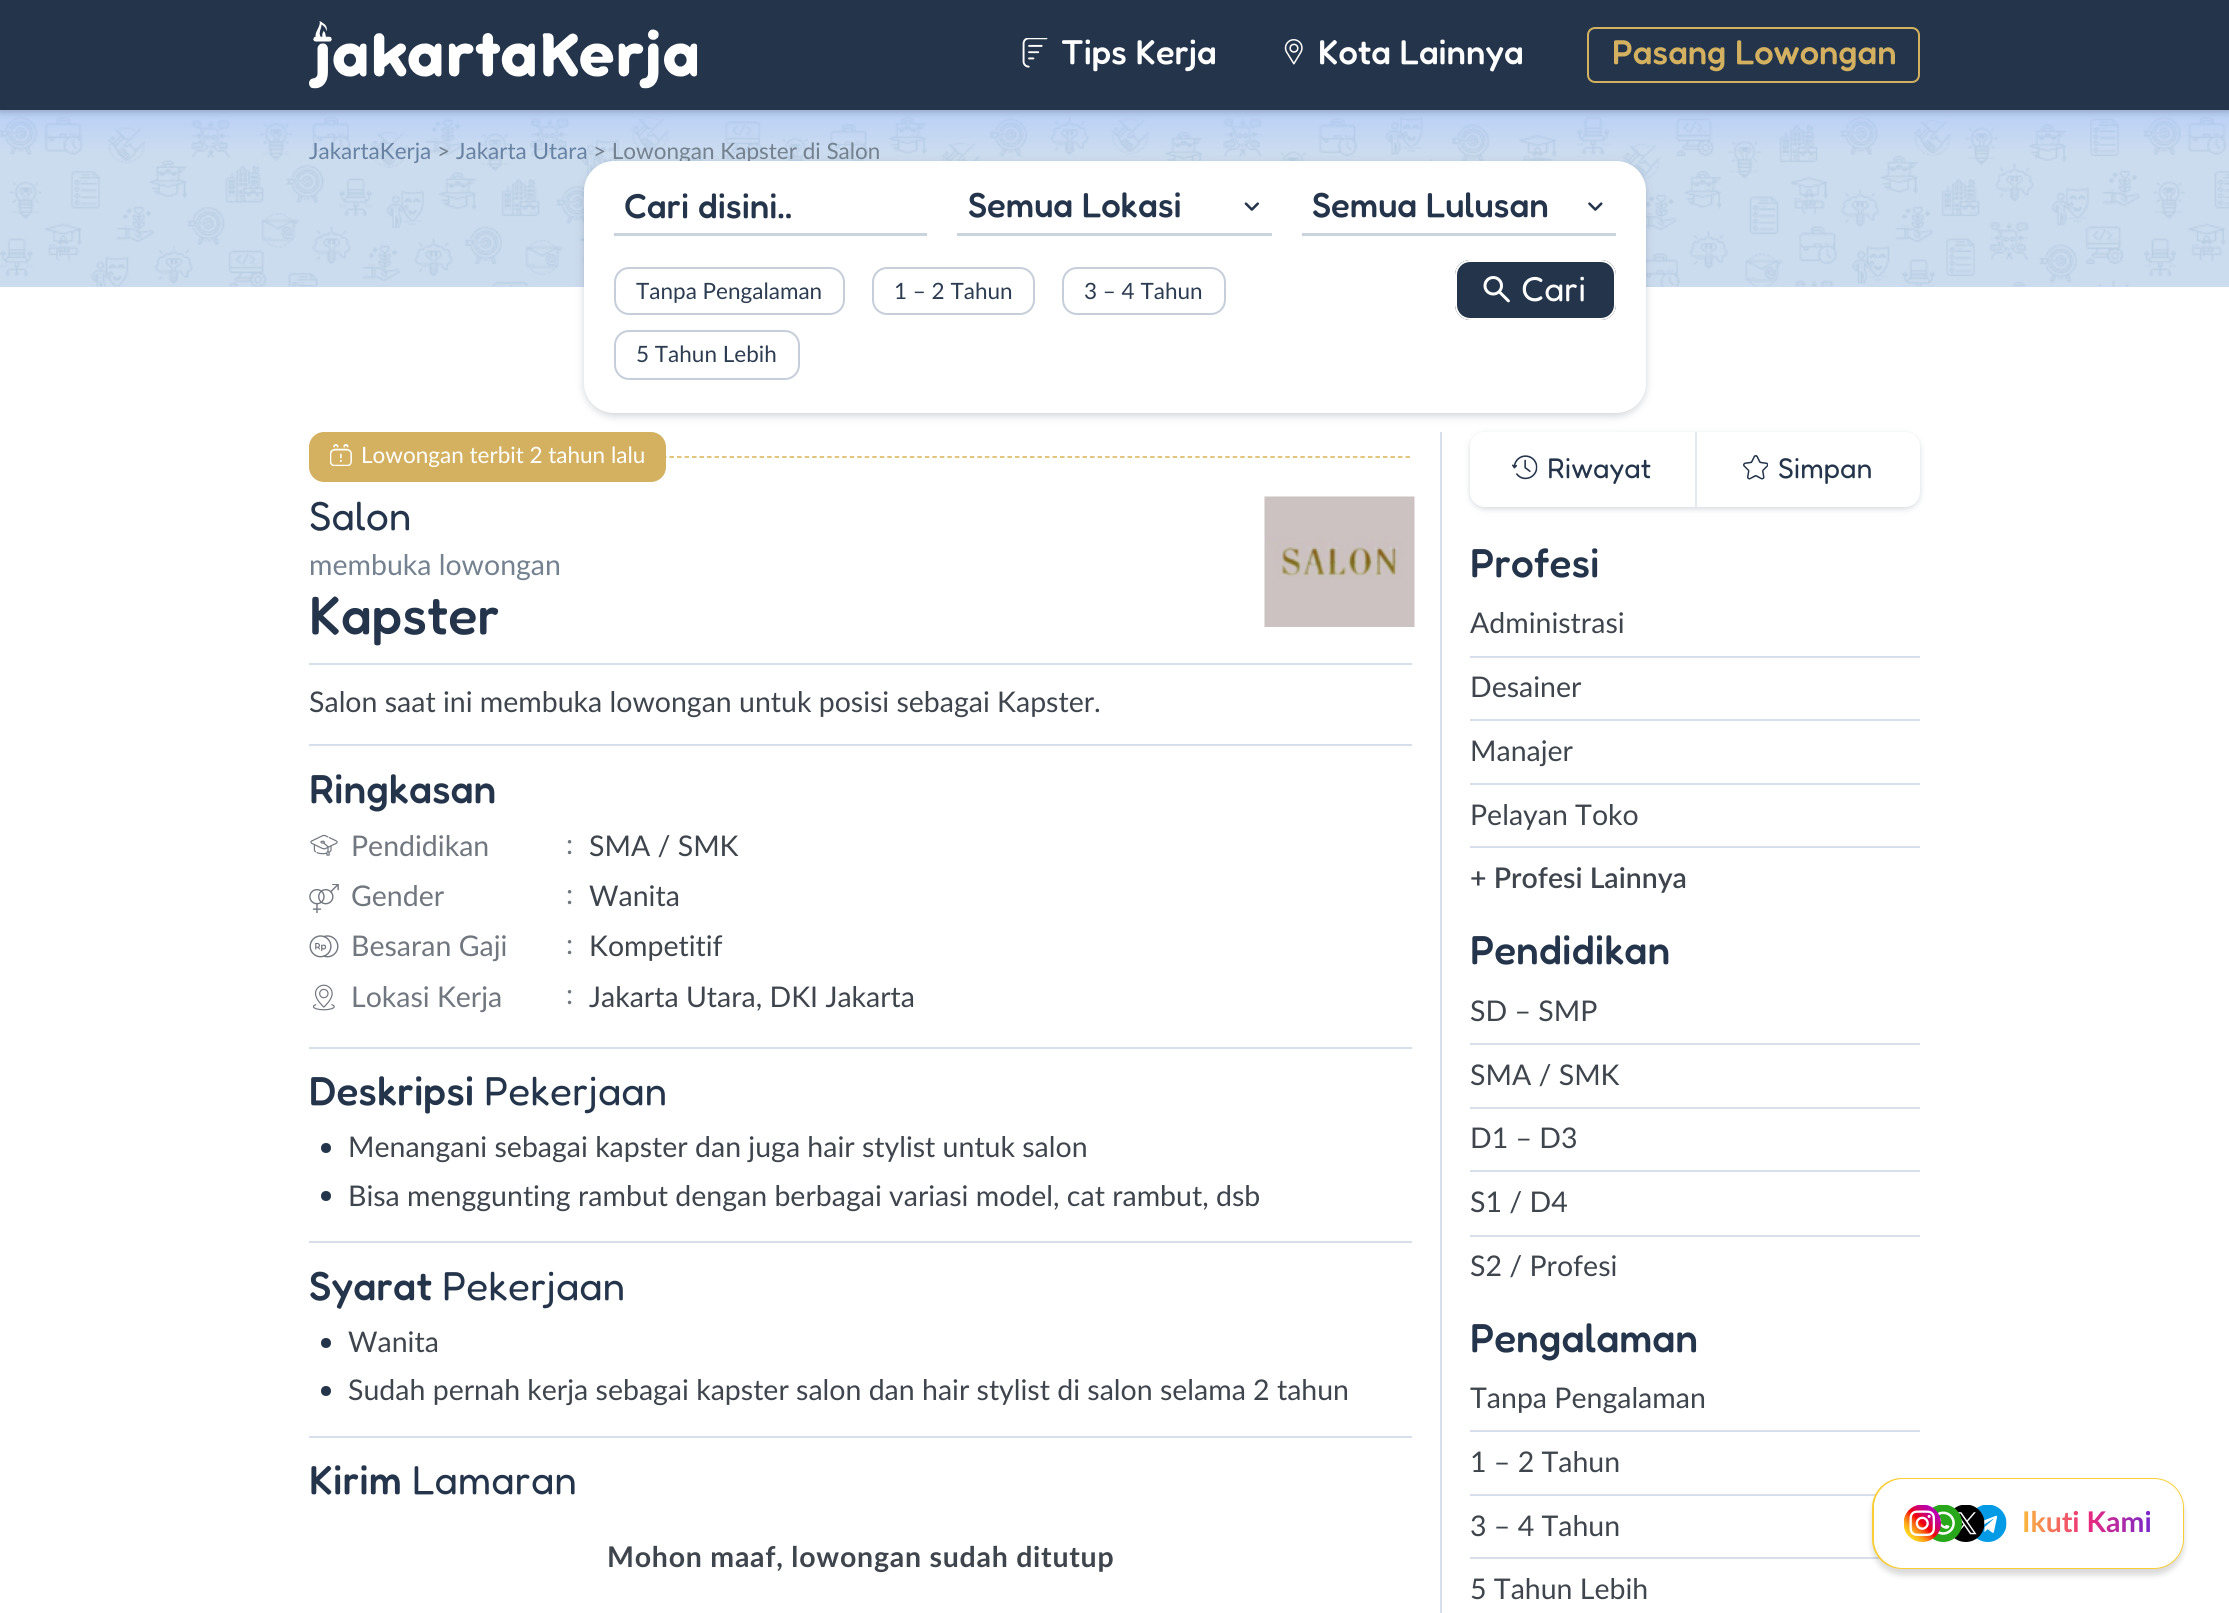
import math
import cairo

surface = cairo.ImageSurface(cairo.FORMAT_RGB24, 2229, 1613)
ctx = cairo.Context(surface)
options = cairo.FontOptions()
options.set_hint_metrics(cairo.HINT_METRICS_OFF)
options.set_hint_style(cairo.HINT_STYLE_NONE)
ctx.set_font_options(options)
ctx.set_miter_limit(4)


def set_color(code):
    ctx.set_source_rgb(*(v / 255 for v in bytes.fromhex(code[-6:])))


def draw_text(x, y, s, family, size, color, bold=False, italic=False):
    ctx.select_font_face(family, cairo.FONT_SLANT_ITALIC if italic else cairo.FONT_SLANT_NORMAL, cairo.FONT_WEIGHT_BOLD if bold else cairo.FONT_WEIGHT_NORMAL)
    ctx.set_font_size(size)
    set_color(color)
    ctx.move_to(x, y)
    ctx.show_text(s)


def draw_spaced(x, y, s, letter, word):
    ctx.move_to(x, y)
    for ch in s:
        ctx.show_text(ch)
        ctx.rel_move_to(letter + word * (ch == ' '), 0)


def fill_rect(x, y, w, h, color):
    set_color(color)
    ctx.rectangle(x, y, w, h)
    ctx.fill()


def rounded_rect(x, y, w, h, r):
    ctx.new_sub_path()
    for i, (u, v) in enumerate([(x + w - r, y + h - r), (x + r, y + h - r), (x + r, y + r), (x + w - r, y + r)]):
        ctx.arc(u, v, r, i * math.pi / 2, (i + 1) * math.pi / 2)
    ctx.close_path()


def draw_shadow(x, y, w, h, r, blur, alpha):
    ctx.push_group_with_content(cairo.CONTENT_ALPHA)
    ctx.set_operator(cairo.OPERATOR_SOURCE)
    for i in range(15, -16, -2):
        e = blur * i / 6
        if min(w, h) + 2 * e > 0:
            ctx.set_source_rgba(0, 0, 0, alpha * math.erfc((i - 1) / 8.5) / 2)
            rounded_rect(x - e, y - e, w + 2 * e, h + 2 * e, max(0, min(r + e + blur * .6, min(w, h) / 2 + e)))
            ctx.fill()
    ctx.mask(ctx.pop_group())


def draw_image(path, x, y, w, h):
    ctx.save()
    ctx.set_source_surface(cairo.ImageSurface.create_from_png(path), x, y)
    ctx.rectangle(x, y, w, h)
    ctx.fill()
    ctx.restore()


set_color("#ffffff")
ctx.paint()
fill_rect(0, 110, 2229, 177, "#ccdcef")
draw_image("assets/img4.png", 0, 116, 2229, 171)
gradient = cairo.LinearGradient(1115, 109, 1115, 287)
gradient.add_color_stop_rgba(0, 0.651, 0.769, 1, 0.51)
gradient.add_color_stop_rgba(0.25, 0.651, 0.769, 1, 0)
ctx.set_source(gradient)
ctx.rectangle(0, 110, 2229, 42)
ctx.fill()
set_color("#000000")
draw_shadow(0, 2, 2229, 109, 0, 4, 0.25)
fill_rect(0, 0, 2229, 110, "#24354b")
draw_image("assets/img1.png", 309, 21, 389, 68)
draw_image("assets/img2.png", 1022, 38, 26, 30)
draw_text(1061, 64, "Tips Kerja", "Fredoka Medium", 34.5, "#ffffff")
draw_image("assets/img3.png", 1284, 39, 19, 26)
draw_text(1318, 64, "Kota Lainnya", "Fredoka Medium", 34.5, "#ffffff")
rounded_rect(1588, 28, 331, 54, 7)
set_color("#d3b161")
ctx.stroke()
draw_text(1612, 64, "Pasang Lowongan", "Fredoka Medium", 34.5, "#d3b161")
draw_text(309, 159, "JakartaKerja", "Lato", 22.5, "#6882a3")
draw_text(437, 159, ">", "Lato", 22.5, "#74818f")
draw_text(456, 159, "Jakarta Utara", "Lato", 22.5, "#6882a3")
draw_text(593, 159, "> Lowongan Kapster di Salon", "Lato", 22.5, "#74818f")
set_color("#222f3f")
draw_shadow(584, 164, 1062, 252, 30, 4, 0.21)
set_color("#ffffff")
rounded_rect(584, 161, 1062, 252, 30)
ctx.fill()
fill_rect(614, 233, 313, 3, "#cad4df")
draw_text(624, 218, "Cari disini..", "Fredoka Medium", 34.75, "#24354b")
fill_rect(957, 233, 315, 3, "#cad4df")
draw_text(968, 217, "Semua Lokasi", "Fredoka Medium", 34.75, "#24354b")
draw_image("assets/img5.png", 1244, 202, 15, 9)
fill_rect(1302, 233, 314, 3, "#cad4df")
draw_text(1312, 217, "Semua Lulusan", "Fredoka Medium", 34.75, "#24354b")
draw_image("assets/img6.png", 1588, 202, 15, 9)
rounded_rect(615, 268, 229, 46, 14)
set_color("#c5ced9")
ctx.stroke()
draw_text(636, 299, "Tanpa Pengalaman", "Lato", 22.5, "#2d3d51")
rounded_rect(873, 268, 161, 46, 14)
set_color("#c5ced9")
ctx.stroke()
draw_text(894, 299, "1 – 2 Tahun", "Lato", 22.5, "#2d3d51")
rounded_rect(1063, 268, 162, 46, 14)
set_color("#c5ced9")
ctx.stroke()
draw_text(1084, 299, "3 – 4 Tahun", "Lato", 22.5, "#2d3d51")
rounded_rect(615, 331, 184, 48, 14)
set_color("#c5ced9")
ctx.stroke()
draw_text(636, 362, "5 Tahun Lebih", "Lato", 22.5, "#2d3d51")
set_color("#24354b")
rounded_rect(1455, 260, 161, 60, 15)
ctx.fill()
draw_image("assets/img7.png", 1483, 276, 27, 27)
rounded_rect(1456, 261, 159, 58, 14)
set_color("#ffffff")
ctx.stroke()
draw_text(1521, 301, "Cari", "Fredoka", 34.75, "#ffffff")
fill_rect(1440, 432, 2, 1181, "#d7dfea")
ctx.new_path()
ctx.move_to(309, 457)
ctx.line_to(1411.5, 457)
set_color("#d9b255")
ctx.set_line_width(1.5)
ctx.set_dash([4.5, 3.01])
ctx.stroke()
set_color("#d3b161")
rounded_rect(309, 432, 357, 50, 15)
ctx.fill()
draw_image("assets/img8.png", 330, 444, 22, 23)
draw_text(361, 463, "Lowongan terbit 2 tahun lalu", "Lato", 22.5, "#ffffff")
draw_text(309, 530, "Salon", "Fredoka", 40.5, "#24354b")
draw_text(309, 575, "membuka lowongan", "Lato", 28.5, "#74818f")
draw_text(309, 634, "Kapster", "Fredoka Medium", 54, "#24354b")
draw_image("assets/img9.png", 1264, 496, 151, 131)
fill_rect(309, 663, 1103, 2, "#d7dfea")
fill_rect(309, 744, 1103, 2, "#d7dfea")
draw_text(309, 712, "Salon saat ini membuka lowongan untuk posisi sebagai Kapster.", "Lato", 28.5, "#3f454d")
draw_text(309, 803, "Ringkasan", "Fredoka Medium", 40.5, "#24354b")
fill_rect(309, 1047, 1103, 2, "#d7dfea")
draw_image("assets/img10.png", 310, 834, 28, 22)
draw_text(351, 856, "Pendidikan", "Lato", 28.5, "#71777f")
draw_text(566, 854, ":", "Lato", 28.5, "#71777f")
draw_text(589, 856, "SMA / SMK", "Lato", 28.5, "#3f454d")
draw_image("assets/img11.png", 309, 884, 30, 30)
draw_text(351, 906, "Gender", "Lato", 28.5, "#71777f")
draw_text(566, 904, ":", "Lato", 28.5, "#71777f")
draw_text(589, 906, "Wanita", "Lato", 28.5, "#3f454d")
draw_image("assets/img12.png", 309, 935, 30, 23)
draw_text(351, 956, "Besaran Gaji", "Lato", 28.5, "#71777f")
draw_text(566, 954, ":", "Lato", 28.5, "#71777f")
draw_text(589, 956, "Kompetitif", "Lato", 28.5, "#3f454d")
draw_image("assets/img13.png", 312, 984, 23, 27)
draw_text(351, 1007, "Lokasi Kerja", "Lato", 28.5, "#71777f")
draw_text(566, 1004, ":", "Lato", 28.5, "#71777f")
draw_text(589, 1007, "Jakarta Utara, DKI Jakarta", "Lato", 28.5, "#3f454d")
draw_text(309, 1105, "Deskripsi", "Fredoka Medium", 40.5, "#24354b")
draw_text(484, 1105, "Pekerjaan", "Fredoka", 40.5, "#24354b")
fill_rect(309, 1241, 1103, 2, "#d7dfea")
set_color("#24354b")
ctx.new_path()
ctx.arc(326, 1148, 5, 0, 2 * math.pi)
ctx.fill()
draw_text(348, 1157, "Menangani sebagai kapster dan juga hair stylist untuk salon", "Lato", 28.5, "#3f454d")
set_color("#24354b")
ctx.new_path()
ctx.arc(326, 1196, 5, 0, 2 * math.pi)
ctx.fill()
draw_text(348, 1206, "Bisa menggunting rambut dengan berbagai variasi model, cat rambut, dsb", "Lato", 28.5, "#3f454d")
draw_text(309, 1300, "Syarat", "Fredoka Medium", 40.5, "#24354b")
draw_text(442, 1300, "Pekerjaan", "Fredoka", 40.5, "#24354b")
fill_rect(309, 1436, 1103, 2, "#d7dfea")
set_color("#24354b")
ctx.new_path()
ctx.arc(326, 1343, 5, 0, 2 * math.pi)
ctx.fill()
draw_text(348, 1352, "Wanita", "Lato", 28.5, "#3f454d")
set_color("#24354b")
ctx.new_path()
ctx.arc(326, 1391, 5, 0, 2 * math.pi)
ctx.fill()
draw_text(348, 1400, "Sudah pernah kerja sebagai kapster salon dan hair stylist di salon selama 2 tahun", "Lato", 28.5, "#3f454d")
draw_text(309, 1494, "Kirim", "Fredoka Medium", 40.5, "#24354b")
draw_text(412, 1494, "Lamaran", "Fredoka", 40.5, "#24354b")
ctx.select_font_face("Lato", cairo.FONT_SLANT_NORMAL, cairo.FONT_WEIGHT_BOLD)
ctx.set_font_size(28.5)
set_color("#3f454d")
draw_spaced(607, 1567, "Mohon maaf, lowongan sudah ditutup", 0.75, 0)
set_color("#2f4159")
draw_shadow(1470, 434, 450, 75, 15, 3, 0.2)
set_color("#ffffff")
rounded_rect(1470, 432, 450, 75, 15)
ctx.fill()
fill_rect(1695, 432, 2, 75, "#e3eaf2")
draw_image("assets/img14.png", 1512, 455, 26, 25)
draw_text(1547, 478, "Riwayat", "Fredoka", 28.5, "#24354b")
draw_image("assets/img15.png", 1743, 455, 25, 25)
draw_text(1778, 478, "Simpan", "Fredoka", 28.5, "#24354b")
draw_text(1470, 577, "Profesi", "Fredoka Medium", 40.5, "#24354b")
fill_rect(1470, 656, 450, 2, "#d7dfea")
draw_text(1470, 633, "Administrasi", "Lato", 28.5, "#3f454d")
fill_rect(1470, 719, 450, 2, "#d7dfea")
draw_text(1470, 697, "Desainer", "Lato", 28.5, "#3f454d")
fill_rect(1470, 783, 450, 2, "#d7dfea")
draw_text(1470, 761, "Manajer", "Lato", 28.5, "#3f454d")
fill_rect(1470, 846, 450, 2, "#d7dfea")
draw_text(1470, 825, "Pelayan Toko", "Lato", 28.5, "#3f454d")
draw_text(1470, 888, "+ Profesi Lainnya", "Lato SemiBold", 28.5, "#3f454d")
draw_text(1470, 964, "Pendidikan", "Fredoka Medium", 40.5, "#24354b")
fill_rect(1470, 1043, 450, 2, "#d7dfea")
draw_text(1470, 1021, "SD – SMP", "Lato", 28.5, "#3f454d")
fill_rect(1470, 1107, 450, 2, "#d7dfea")
draw_text(1470, 1085, "SMA / SMK", "Lato", 28.5, "#3f454d")
fill_rect(1470, 1170, 450, 2, "#d7dfea")
draw_text(1470, 1148, "D1 – D3", "Lato", 28.5, "#3f454d")
fill_rect(1470, 1235, 450, 2, "#d7dfea")
draw_text(1470, 1212, "S1 / D4", "Lato", 28.5, "#3f454d")
draw_text(1470, 1276, "S2 / Profesi", "Lato", 28.5, "#3f454d")
draw_text(1470, 1352, "Pengalaman", "Fredoka Medium", 40.5, "#24354b")
fill_rect(1470, 1430, 450, 2, "#d7dfea")
draw_text(1470, 1408, "Tanpa Pengalaman", "Lato", 28.5, "#3f454d")
fill_rect(1470, 1494, 408, 2, "#d7dfea")
draw_text(1470, 1472, "1 – 2 Tahun", "Lato", 28.5, "#3f454d")
fill_rect(1470, 1557, 412, 2, "#d7dfea")
draw_text(1470, 1536, "3 – 4 Tahun", "Lato", 28.5, "#3f454d")
draw_text(1470, 1599, "5 Tahun Lebih", "Lato", 28.5, "#3f454d")
set_color("#000000")
draw_shadow(1872, 1484, 312, 91, 30, 3, 0.15)
rounded_rect(1873, 1479, 310, 89, 29)
set_color("#f9ce34")
ctx.set_line_width(2)
ctx.set_dash([])
ctx.stroke()
set_color("#ffffff")
rounded_rect(1874, 1479, 309, 89, 29)
ctx.fill()
draw_image("assets/img16.png", 1904, 1505, 103, 37)
ctx.select_font_face("Lato", cairo.FONT_SLANT_NORMAL, cairo.FONT_WEIGHT_BOLD)
gradient = cairo.LinearGradient(2022, 1524, 2152, 1524)
gradient.add_color_stop_rgba(0, 0.973, 0.729, 0.239, 1)
gradient.add_color_stop_rgba(0.5, 0.929, 0.165, 0.486, 1)
gradient.add_color_stop_rgba(1, 0.459, 0.161, 0.796, 1)
ctx.set_source(gradient)
ctx.move_to(2022, 1532)
ctx.show_text("Ikuti Kami")
surface.write_to_png("output.png")
